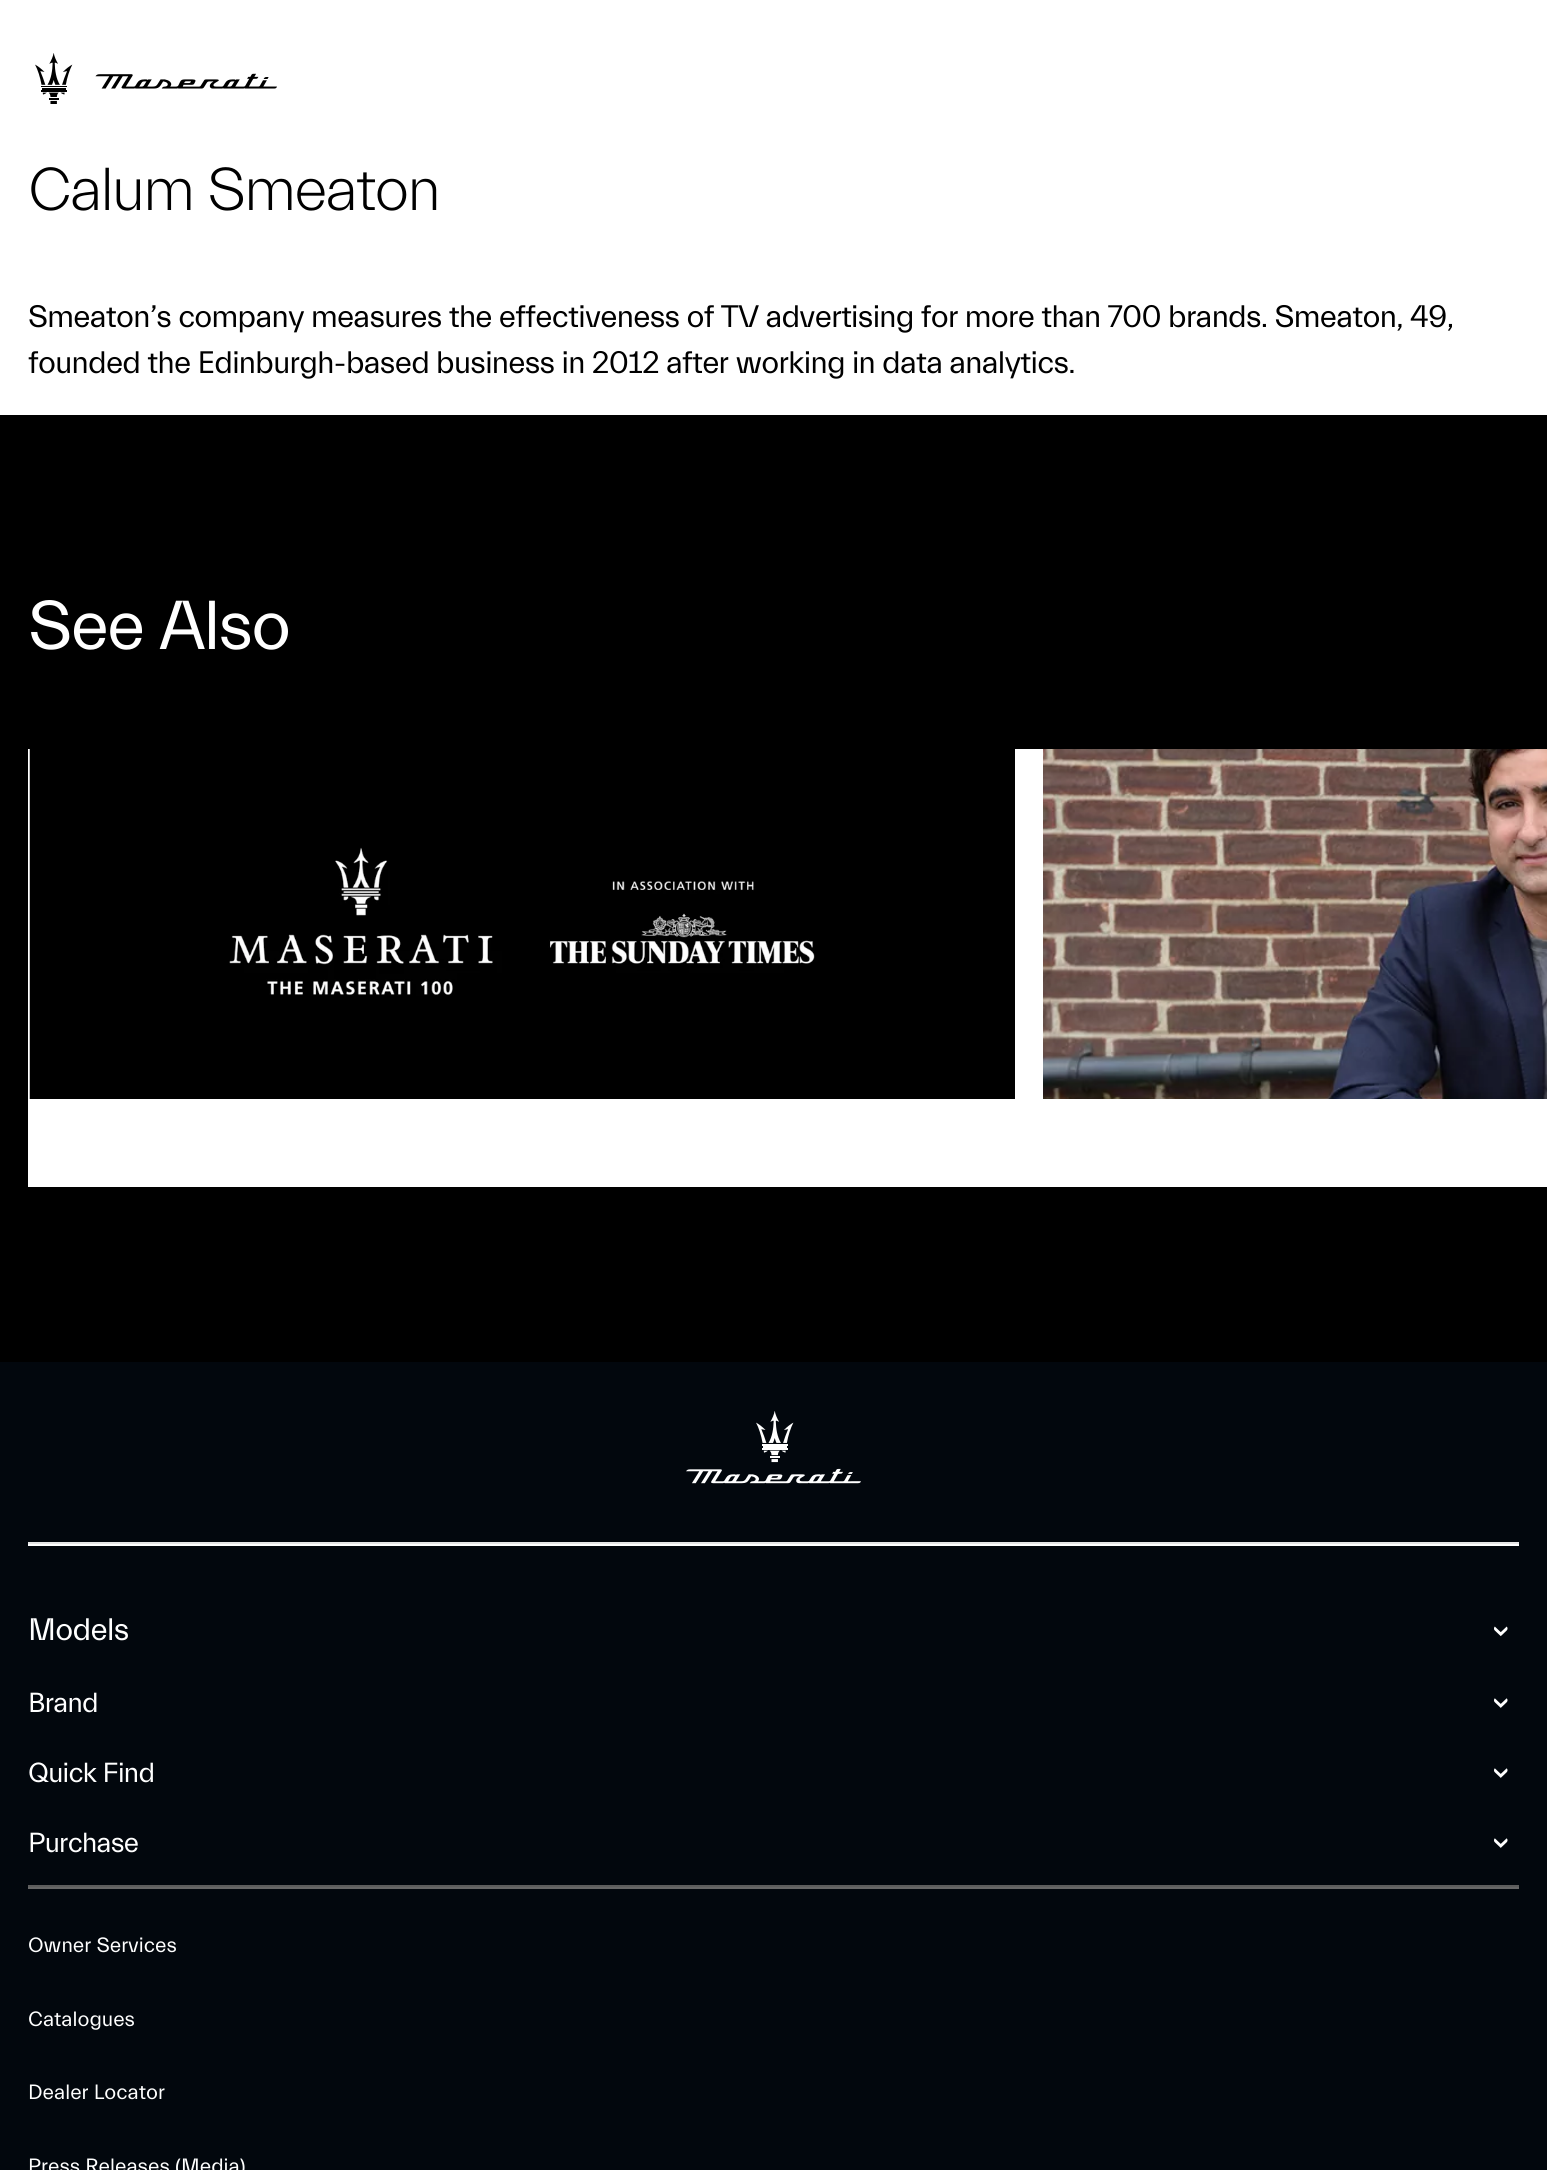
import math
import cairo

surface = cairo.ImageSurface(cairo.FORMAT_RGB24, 1547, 2170)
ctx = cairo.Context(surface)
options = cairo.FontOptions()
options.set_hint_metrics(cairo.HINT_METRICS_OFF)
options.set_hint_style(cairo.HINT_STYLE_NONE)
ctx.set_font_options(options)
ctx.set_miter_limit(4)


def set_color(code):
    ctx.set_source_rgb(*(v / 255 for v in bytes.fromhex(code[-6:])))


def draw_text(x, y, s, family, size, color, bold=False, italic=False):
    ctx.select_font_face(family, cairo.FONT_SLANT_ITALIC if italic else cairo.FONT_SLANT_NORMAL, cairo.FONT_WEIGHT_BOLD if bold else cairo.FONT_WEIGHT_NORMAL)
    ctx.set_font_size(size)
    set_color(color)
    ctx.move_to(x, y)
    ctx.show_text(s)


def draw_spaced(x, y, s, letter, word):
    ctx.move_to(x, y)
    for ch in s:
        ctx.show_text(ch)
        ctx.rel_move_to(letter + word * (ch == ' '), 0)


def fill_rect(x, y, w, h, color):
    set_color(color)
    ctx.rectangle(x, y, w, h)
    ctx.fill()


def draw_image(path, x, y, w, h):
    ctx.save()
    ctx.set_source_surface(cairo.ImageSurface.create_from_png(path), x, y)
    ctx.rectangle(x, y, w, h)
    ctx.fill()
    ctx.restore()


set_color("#ffffff")
ctx.paint()
draw_image("assets/img1.png", 35, 53, 242, 51)
ctx.select_font_face("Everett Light")
ctx.set_font_size(61.25)
set_color("#000000")
draw_spaced(28, 210, "Calum Smeaton", -1.75, 0)
ctx.select_font_face("Everett")
ctx.set_font_size(31.5)
draw_spaced(28, 327, "Smeaton’s company measures the effectiveness of TV advertising for more than 700 brands. Smeaton, 49,", -0.7, 0)
draw_spaced(28, 373, "founded the Edinburgh-based business in 2012 after working in data analytics.", -0.7, 0)
fill_rect(0, 415, 1547, 947, "#000000")
ctx.set_font_size(70)
set_color("#ffffff")
draw_spaced(28, 649, "See Also", -1.75, 0)
fill_rect(28, 749, 1519, 438, "#ffffff")
draw_image("assets/img2.png", 29, 749, 986, 350)
draw_image("assets/img3.png", 1043, 749, 504, 350)
fill_rect(0, 1362, 1547, 808, "#02070d")
draw_image("assets/img4.png", 686, 1411, 175, 73)
fill_rect(28, 1544, 1491, 2, "#ffffff")
fill_rect(28, 1542, 1491, 2, "#e6e6e6")
ctx.set_font_size(31.5)
set_color("#ffffff")
draw_spaced(28, 1640, "Models", -0.7, 0)
draw_image("assets/img5.png", 1494, 1626, 14, 11)
ctx.set_font_size(28)
draw_spaced(28, 1712, "Brand", -0.7, 0)
draw_image("assets/img6.png", 1494, 1698, 14, 10)
draw_spaced(28, 1782, "Quick Find", -0.7, 0)
draw_image("assets/img6.png", 1494, 1768, 14, 10)
draw_spaced(28, 1852, "Purchase", -0.7, 0)
draw_image("assets/img6.png", 1494, 1838, 14, 10)
fill_rect(28, 1887, 1491, 2, "#666666")
fill_rect(28, 1885, 1491, 2, "#5c5c5c")
draw_text(28, 1952, "Owner Services", "Everett", 21, "#ffffff")
draw_text(28, 2026, "Catalogues", "Everett", 21, "#ffffff")
draw_text(28, 2099, "Dealer Locator", "Everett", 21, "#ffffff")
draw_text(28, 2173, "Press Releases (Media)", "Everett", 21, "#ffffff")
surface.write_to_png("output.png")
